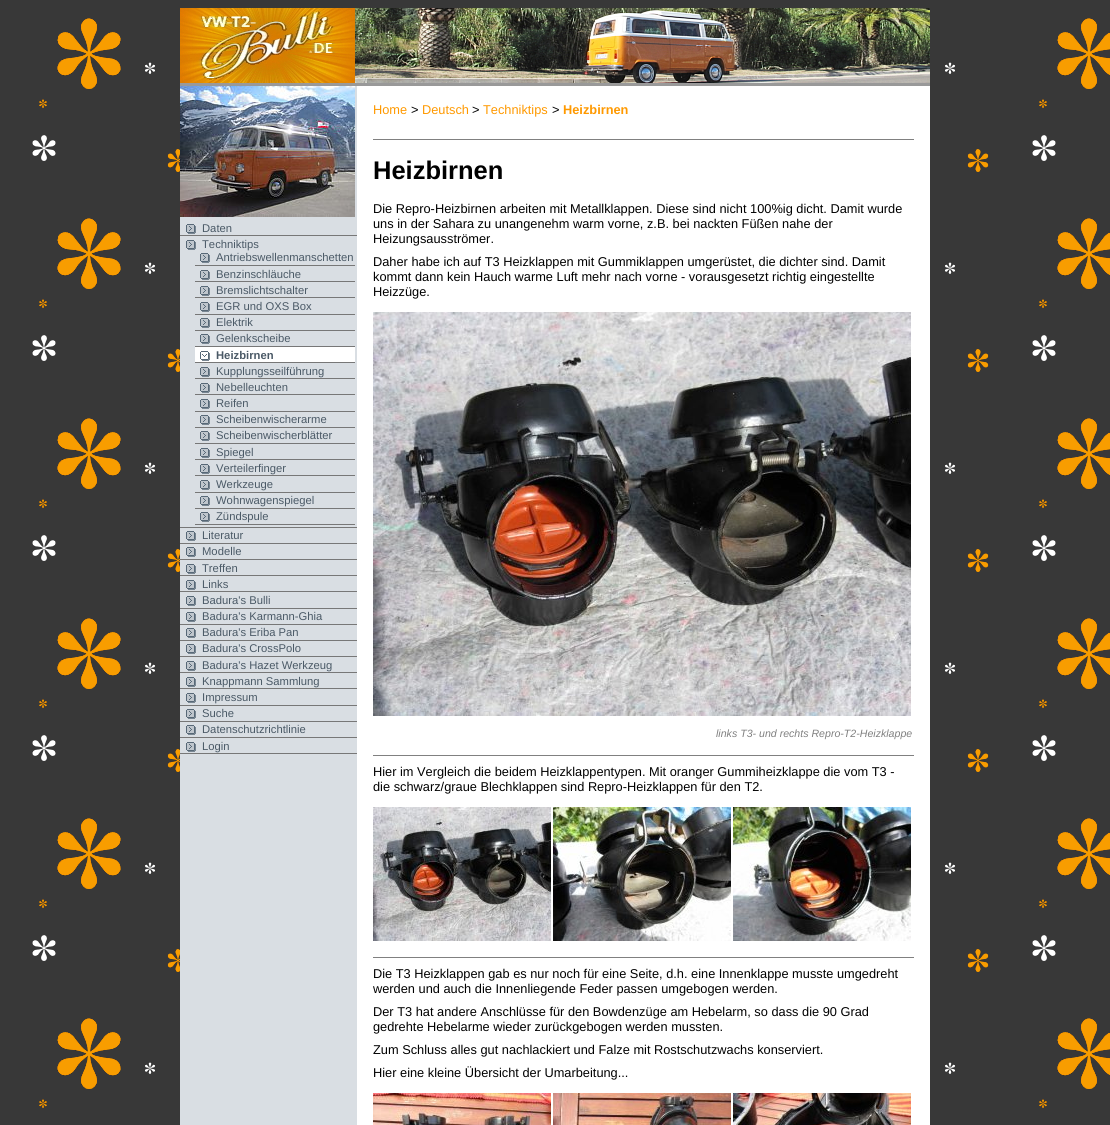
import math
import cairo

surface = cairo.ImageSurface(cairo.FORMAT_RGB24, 1110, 1125)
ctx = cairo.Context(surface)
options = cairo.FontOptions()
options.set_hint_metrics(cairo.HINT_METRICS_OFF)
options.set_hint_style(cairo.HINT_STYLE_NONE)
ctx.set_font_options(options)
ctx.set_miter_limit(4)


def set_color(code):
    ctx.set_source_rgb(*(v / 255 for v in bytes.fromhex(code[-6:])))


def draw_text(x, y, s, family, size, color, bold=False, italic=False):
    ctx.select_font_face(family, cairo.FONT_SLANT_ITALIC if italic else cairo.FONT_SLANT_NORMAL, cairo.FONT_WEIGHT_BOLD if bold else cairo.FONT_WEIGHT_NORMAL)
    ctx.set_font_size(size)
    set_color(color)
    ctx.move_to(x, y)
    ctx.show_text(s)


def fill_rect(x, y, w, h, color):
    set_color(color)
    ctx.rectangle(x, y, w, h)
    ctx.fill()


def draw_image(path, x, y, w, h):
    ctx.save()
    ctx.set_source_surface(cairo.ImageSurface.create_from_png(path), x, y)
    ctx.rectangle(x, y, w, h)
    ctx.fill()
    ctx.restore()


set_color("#ffffff")
ctx.paint()
draw_image("assets/img1.png", 0, 0, 1110, 1125)
fill_rect(357, 86, 573, 1039, "#ffffff")
fill_rect(180, 83, 750, 3, "#999999")
draw_image("assets/img2.png", 180, 8, 175, 75)
draw_image("assets/img3.png", 355, 8, 575, 75)
fill_rect(180, 86, 177, 1039, "#d9dee3")
draw_image("assets/img4.png", 180, 86, 175, 131)
fill_rect(180, 235, 177, 1, "#777777")
draw_image("assets/img5.png", 186, 224, 10, 10)
draw_text(202, 232, "Daten", "Liberation Sans", 11.25, "#4a5966")
fill_rect(180, 527, 177, 1, "#777777")
draw_image("assets/img5.png", 186, 240, 10, 10)
draw_text(202, 248, "Techniktips", "Liberation Sans", 11.25, "#4a5966")
fill_rect(195, 265, 160, 1, "#777777")
draw_image("assets/img5.png", 200, 253, 10, 10)
draw_text(216, 261, "Antriebswellenmanschetten", "Liberation Sans", 11.25, "#4a5966")
fill_rect(195, 281, 160, 1, "#777777")
draw_image("assets/img5.png", 200, 270, 10, 10)
draw_text(216, 278, "Benzinschläuche", "Liberation Sans", 11.25, "#4a5966")
fill_rect(195, 297, 160, 1, "#777777")
draw_image("assets/img5.png", 200, 286, 10, 10)
draw_text(216, 294, "Bremslichtschalter", "Liberation Sans", 11.25, "#4a5966")
fill_rect(195, 314, 160, 1, "#777777")
draw_image("assets/img5.png", 200, 302, 10, 10)
draw_text(216, 310, "EGR und OXS Box", "Liberation Sans", 11.25, "#4a5966")
fill_rect(195, 330, 160, 1, "#777777")
draw_image("assets/img5.png", 200, 318, 10, 10)
draw_text(216, 326, "Elektrik", "Liberation Sans", 11.25, "#4a5966")
fill_rect(195, 346, 160, 1, "#777777")
draw_image("assets/img5.png", 200, 334, 10, 10)
draw_text(216, 342, "Gelenkscheibe", "Liberation Sans", 11.25, "#4a5966")
fill_rect(195, 347, 160, 15, "#ffffff")
fill_rect(195, 362, 160, 1, "#777777")
draw_image("assets/img6.png", 200, 351, 10, 10)
draw_text(216, 359, "Heizbirnen", "Liberation Sans", 11.25, "#4a5966", bold=True)
fill_rect(195, 378, 160, 1, "#777777")
draw_image("assets/img5.png", 200, 367, 10, 10)
draw_text(216, 375, "Kupplungsseilführung", "Liberation Sans", 11.25, "#4a5966")
fill_rect(195, 394, 160, 1, "#777777")
draw_image("assets/img5.png", 200, 383, 10, 10)
draw_text(216, 391, "Nebelleuchten", "Liberation Sans", 11.25, "#4a5966")
fill_rect(195, 411, 160, 1, "#777777")
draw_image("assets/img5.png", 200, 399, 10, 10)
draw_text(216, 407, "Reifen", "Liberation Sans", 11.25, "#4a5966")
fill_rect(195, 427, 160, 1, "#777777")
draw_image("assets/img5.png", 200, 415, 10, 10)
draw_text(216, 423, "Scheibenwischerarme", "Liberation Sans", 11.25, "#4a5966")
fill_rect(195, 443, 160, 1, "#777777")
draw_image("assets/img5.png", 200, 431, 10, 10)
draw_text(216, 439, "Scheibenwischerblätter", "Liberation Sans", 11.25, "#4a5966")
fill_rect(195, 459, 160, 1, "#777777")
draw_image("assets/img5.png", 200, 448, 10, 10)
draw_text(216, 456, "Spiegel", "Liberation Sans", 11.25, "#4a5966")
fill_rect(195, 475, 160, 1, "#777777")
draw_image("assets/img5.png", 200, 464, 10, 10)
draw_text(216, 472, "Verteilerfinger", "Liberation Sans", 11.25, "#4a5966")
fill_rect(195, 492, 160, 1, "#777777")
draw_image("assets/img5.png", 200, 480, 10, 10)
draw_text(216, 488, "Werkzeuge", "Liberation Sans", 11.25, "#4a5966")
fill_rect(195, 508, 160, 1, "#777777")
draw_image("assets/img5.png", 200, 496, 10, 10)
draw_text(216, 504, "Wohnwagenspiegel", "Liberation Sans", 11.25, "#4a5966")
fill_rect(195, 524, 160, 1, "#777777")
draw_image("assets/img5.png", 200, 512, 10, 10)
draw_text(216, 520, "Zündspule", "Liberation Sans", 11.25, "#4a5966")
fill_rect(180, 543, 177, 1, "#777777")
draw_image("assets/img5.png", 186, 531, 10, 10)
draw_text(202, 539, "Literatur", "Liberation Sans", 11.25, "#4a5966")
fill_rect(180, 559, 177, 1, "#777777")
draw_image("assets/img5.png", 186, 547, 10, 10)
draw_text(202, 555, "Modelle", "Liberation Sans", 11.25, "#4a5966")
fill_rect(180, 575, 177, 1, "#777777")
draw_image("assets/img5.png", 186, 564, 10, 10)
draw_text(202, 572, "Treffen", "Liberation Sans", 11.25, "#4a5966")
fill_rect(180, 591, 177, 1, "#777777")
draw_image("assets/img5.png", 186, 580, 10, 10)
draw_text(202, 588, "Links", "Liberation Sans", 11.25, "#4a5966")
fill_rect(180, 608, 177, 1, "#777777")
draw_image("assets/img5.png", 186, 596, 10, 10)
draw_text(202, 604, "Badura's Bulli", "Liberation Sans", 11.25, "#4a5966")
fill_rect(180, 624, 177, 1, "#777777")
draw_image("assets/img5.png", 186, 612, 10, 10)
draw_text(202, 620, "Badura's Karmann-Ghia", "Liberation Sans", 11.25, "#4a5966")
fill_rect(180, 640, 177, 1, "#777777")
draw_image("assets/img5.png", 186, 628, 10, 10)
draw_text(202, 636, "Badura's Eriba Pan", "Liberation Sans", 11.25, "#4a5966")
fill_rect(180, 656, 177, 1, "#777777")
draw_image("assets/img5.png", 186, 644, 10, 10)
draw_text(202, 652, "Badura's CrossPolo", "Liberation Sans", 11.25, "#4a5966")
fill_rect(180, 672, 177, 1, "#777777")
draw_image("assets/img5.png", 186, 661, 10, 10)
draw_text(202, 669, "Badura's Hazet Werkzeug", "Liberation Sans", 11.25, "#4a5966")
fill_rect(180, 688, 177, 1, "#777777")
draw_image("assets/img5.png", 186, 677, 10, 10)
draw_text(202, 685, "Knappmann Sammlung", "Liberation Sans", 11.25, "#4a5966")
fill_rect(180, 705, 177, 1, "#777777")
draw_image("assets/img5.png", 186, 693, 10, 10)
draw_text(202, 701, "Impressum", "Liberation Sans", 11.25, "#4a5966")
fill_rect(180, 721, 177, 1, "#777777")
draw_image("assets/img5.png", 186, 709, 10, 10)
draw_text(202, 717, "Suche", "Liberation Sans", 11.25, "#4a5966")
fill_rect(180, 737, 177, 1, "#777777")
draw_image("assets/img5.png", 186, 725, 10, 10)
draw_text(202, 733, "Datenschutzrichtlinie", "Liberation Sans", 11.25, "#4a5966")
fill_rect(180, 753, 177, 1, "#777777")
draw_image("assets/img5.png", 186, 742, 10, 10)
draw_text(202, 750, "Login", "Liberation Sans", 11.25, "#4a5966")
draw_text(373, 114, "Home", "Liberation Sans", 12.8, "#ff9900")
draw_text(411, 114, ">", "Liberation Sans", 12.8, "#000000")
draw_text(422, 114, "Deutsch", "Liberation Sans", 12.8, "#ff9900")
draw_text(472, 114, ">", "Liberation Sans", 12.8, "#000000")
draw_text(483, 114, "Techniktips", "Liberation Sans", 12.8, "#ff9900")
draw_text(552, 114, ">", "Liberation Sans", 12.8, "#000000")
draw_text(563, 114, "Heizbirnen", "Liberation Sans", 12.8, "#ff9900", bold=True)
fill_rect(373, 139, 541, 1, "#808080")
draw_text(373, 179, "Heizbirnen", "Liberation Sans", 25.5, "#000000", bold=True)
draw_text(373, 213, "Die Repro-Heizbirnen arbeiten mit Metallklappen. Diese sind nicht 100%ig dicht. Damit wurde", "Liberation Sans", 12.8, "#000000")
draw_text(373, 228, "uns in der Sahara zu unangenehm warm vorne, z.B. bei nackten Füßen nahe der", "Liberation Sans", 12.8, "#000000")
draw_text(373, 243, "Heizungsausströmer.", "Liberation Sans", 12.8, "#000000")
draw_text(373, 266, "Daher habe ich auf T3 Heizklappen mit Gummiklappen umgerüstet, die dichter sind. Damit", "Liberation Sans", 12.8, "#000000")
draw_text(373, 281, "kommt dann kein Hauch warme Luft mehr nach vorne - vorausgesetzt richtig eingestellte", "Liberation Sans", 12.8, "#000000")
draw_text(373, 296, "Heizzüge.", "Liberation Sans", 12.8, "#000000")
draw_image("assets/img7.png", 373, 312, 538, 404)
draw_text(716, 737, "links T3- und rechts Repro-T2-Heizklappe", "Liberation Sans", 10.6, "#808080", italic=True)
fill_rect(373, 755, 541, 1, "#808080")
draw_text(373, 776, "Hier im Vergleich die beidem Heizklappentypen. Mit oranger Gummiheizklappe die vom T3 -", "Liberation Sans", 12.8, "#000000")
draw_text(373, 791, "die schwarz/graue Blechklappen sind Repro-Heizklappen für den T2.", "Liberation Sans", 12.8, "#000000")
draw_image("assets/img8.png", 373, 807, 178, 134)
draw_image("assets/img9.png", 553, 807, 178, 134)
draw_image("assets/img10.png", 733, 807, 178, 134)
fill_rect(373, 957, 541, 1, "#808080")
draw_text(373, 978, "Die T3 Heizklappen gab es nur noch für eine Seite, d.h. eine Innenklappe musste umgedreht", "Liberation Sans", 12.8, "#000000")
draw_text(373, 993, "werden und auch die Innenliegende Feder passen umgebogen werden.", "Liberation Sans", 12.8, "#000000")
draw_text(373, 1016, "Der T3 hat andere Anschlüsse für den Bowdenzüge am Hebelarm, so dass die 90 Grad", "Liberation Sans", 12.8, "#000000")
draw_text(373, 1031, "gedrehte Hebelarme wieder zurückgebogen werden mussten.", "Liberation Sans", 12.8, "#000000")
draw_text(373, 1054, "Zum Schluss alles gut nachlackiert und Falze mit Rostschutzwachs konserviert.", "Liberation Sans", 12.8, "#000000")
draw_text(373, 1077, "Hier eine kleine Übersicht der Umarbeitung...", "Liberation Sans", 12.8, "#000000")
draw_image("assets/img11.png", 373, 1093, 178, 32)
draw_image("assets/img12.png", 553, 1093, 178, 32)
draw_image("assets/img13.png", 733, 1093, 178, 32)
surface.write_to_png("output.png")
